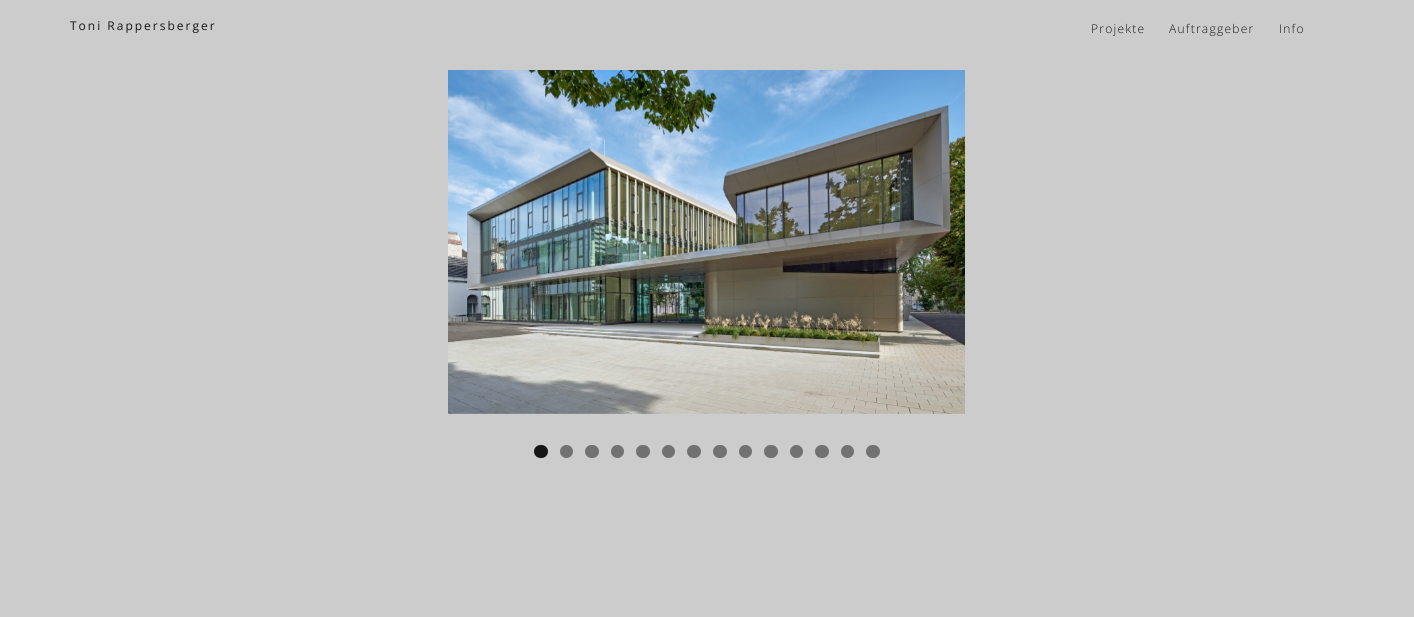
import math
import cairo

surface = cairo.ImageSurface(cairo.FORMAT_RGB24, 1414, 617)
ctx = cairo.Context(surface)
options = cairo.FontOptions()
options.set_hint_metrics(cairo.HINT_METRICS_OFF)
options.set_hint_style(cairo.HINT_STYLE_NONE)
ctx.set_font_options(options)
ctx.set_miter_limit(4)


def set_color(code):
    ctx.set_source_rgb(*(v / 255 for v in bytes.fromhex(code[-6:])))


def draw_spaced(x, y, s, letter, word):
    ctx.move_to(x, y)
    for ch in s:
        ctx.show_text(ch)
        ctx.rel_move_to(letter + word * (ch == ' '), 0)


def rounded_rect(x, y, w, h, r):
    ctx.new_sub_path()
    for i, (u, v) in enumerate([(x + w - r, y + h - r), (x + r, y + h - r), (x + r, y + r), (x + w - r, y + r)]):
        ctx.arc(u, v, r, i * math.pi / 2, (i + 1) * math.pi / 2)
    ctx.close_path()


def draw_image(path, x, y, w, h):
    ctx.save()
    ctx.set_source_surface(cairo.ImageSurface.create_from_png(path), x, y)
    ctx.rectangle(x, y, w, h)
    ctx.fill()
    ctx.restore()


set_color("#cccccc")
ctx.paint()
ctx.select_font_face("Open Sans")
ctx.set_font_size(12)
set_color("#171617")
draw_spaced(70, 30, "Toni Rappersberger", 2, 0)
ctx.select_font_face("Open Sans Light")
draw_spaced(1091, 33, "Projekte", 1.25, 0)
draw_spaced(1169, 33, "Auftraggeber", 1.25, 0)
draw_spaced(1279, 33, "Info", 1.25, 0)
draw_image("assets/img1.png", 448, 70, 517, 344)
rounded_rect(534, 445, 14, 13, 6.5)
ctx.fill()
set_color("#727172")
ctx.arc(566.5, 451.5, 6.5, 0, 2 * math.pi)
ctx.fill()
rounded_rect(585, 445, 14, 13, 6.5)
ctx.fill()
ctx.arc(617.5, 451.5, 6.5, 0, 2 * math.pi)
ctx.fill()
rounded_rect(636, 445, 14, 13, 6.5)
ctx.fill()
ctx.arc(668.5, 451.5, 6.5, 0, 2 * math.pi)
ctx.fill()
rounded_rect(687, 445, 14, 13, 6.5)
ctx.fill()
rounded_rect(713, 445, 14, 13, 6.5)
ctx.fill()
ctx.arc(745.5, 451.5, 6.5, 0, 2 * math.pi)
ctx.fill()
rounded_rect(764, 445, 14, 13, 6.5)
ctx.fill()
ctx.arc(796.5, 451.5, 6.5, 0, 2 * math.pi)
ctx.fill()
rounded_rect(815, 445, 14, 13, 6.5)
ctx.fill()
ctx.arc(847.5, 451.5, 6.5, 0, 2 * math.pi)
ctx.fill()
rounded_rect(866, 445, 14, 13, 6.5)
ctx.fill()
surface.write_to_png("output.png")
